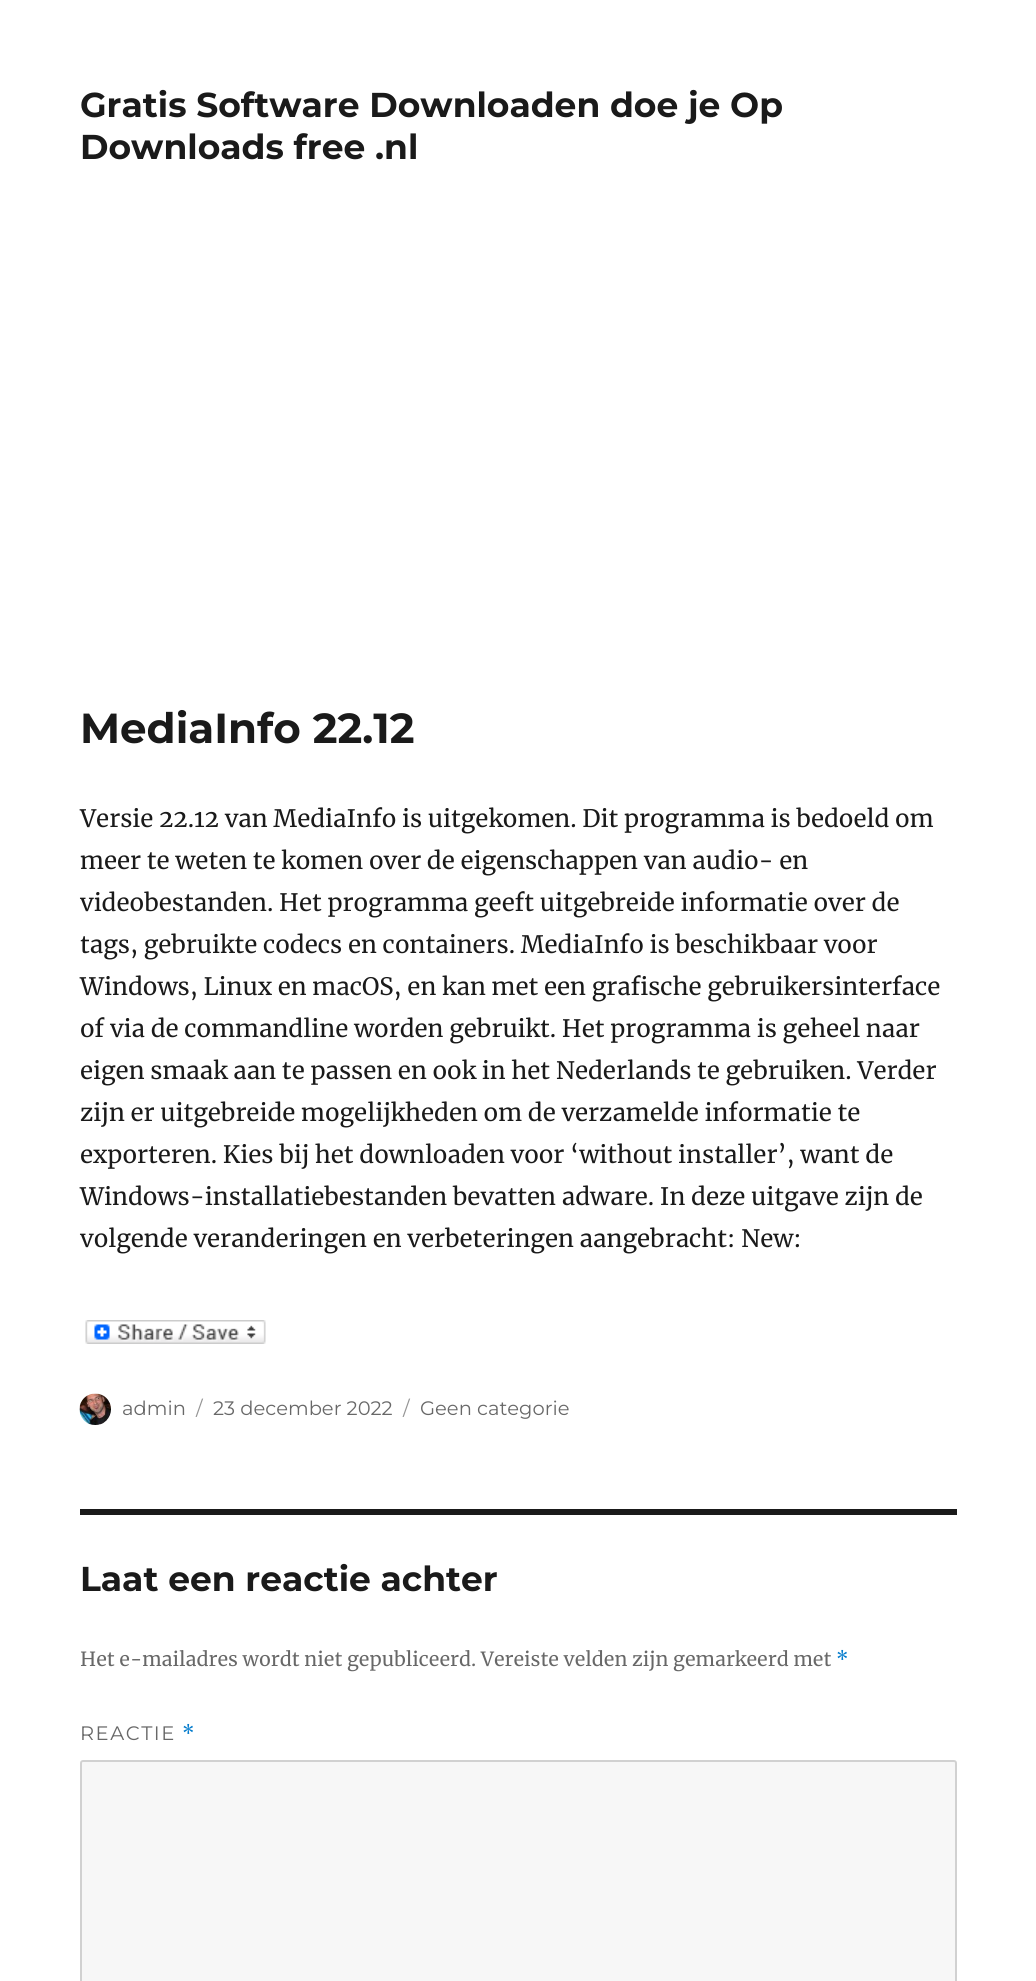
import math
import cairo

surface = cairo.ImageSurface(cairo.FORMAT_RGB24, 1036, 1981)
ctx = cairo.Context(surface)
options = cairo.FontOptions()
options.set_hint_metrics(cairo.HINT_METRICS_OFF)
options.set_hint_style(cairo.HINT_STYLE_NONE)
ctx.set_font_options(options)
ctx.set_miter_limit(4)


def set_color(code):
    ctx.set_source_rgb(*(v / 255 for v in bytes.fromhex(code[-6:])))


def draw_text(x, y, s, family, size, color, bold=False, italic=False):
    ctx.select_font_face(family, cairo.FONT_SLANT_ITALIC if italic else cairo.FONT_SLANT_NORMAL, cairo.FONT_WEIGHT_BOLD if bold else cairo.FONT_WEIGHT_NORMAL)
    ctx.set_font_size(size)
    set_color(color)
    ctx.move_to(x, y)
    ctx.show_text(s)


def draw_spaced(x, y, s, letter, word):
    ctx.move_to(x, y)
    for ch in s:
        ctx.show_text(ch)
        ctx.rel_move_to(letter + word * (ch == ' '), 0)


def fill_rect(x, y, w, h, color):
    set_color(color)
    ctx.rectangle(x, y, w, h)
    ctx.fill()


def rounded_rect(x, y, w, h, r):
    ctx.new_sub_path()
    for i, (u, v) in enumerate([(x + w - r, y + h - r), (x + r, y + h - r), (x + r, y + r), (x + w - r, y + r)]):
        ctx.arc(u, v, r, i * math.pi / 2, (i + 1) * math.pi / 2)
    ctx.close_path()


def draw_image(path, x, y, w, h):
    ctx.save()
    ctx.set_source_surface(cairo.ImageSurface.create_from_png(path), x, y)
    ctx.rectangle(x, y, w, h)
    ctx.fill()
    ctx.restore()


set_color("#ffffff")
ctx.paint()
draw_text(80, 117, "Gratis Software Downloaden doe je Op", "Montserrat Thin", 34.5, "#1a1a1a")
draw_text(80, 159, "Downloads free .nl", "Montserrat Thin", 34.5, "#1a1a1a")
draw_text(80, 743, "MediaInfo 22.12", "Montserrat Thin", 42, "#1a1a1a")
draw_text(80, 827, "Versie 22.12 van MediaInfo is uitgekomen. Dit programma is bedoeld om", "Merriweather", 24, "#1a1a1a")
draw_text(80, 869, "meer te weten te komen over de eigenschappen van audio- en", "Merriweather", 24, "#1a1a1a")
draw_text(80, 911, "videobestanden. Het programma geeft uitgebreide informatie over de", "Merriweather", 24, "#1a1a1a")
draw_text(80, 953, "tags, gebruikte codecs en containers. MediaInfo is beschikbaar voor", "Merriweather", 24, "#1a1a1a")
draw_text(80, 995, "Windows, Linux en macOS, en kan met een grafische gebruikersinterface", "Merriweather", 24, "#1a1a1a")
draw_text(80, 1037, "of via de commandline worden gebruikt. Het programma is geheel naar", "Merriweather", 24, "#1a1a1a")
draw_text(80, 1079, "eigen smaak aan te passen en ook in het Nederlands te gebruiken. Verder", "Merriweather", 24, "#1a1a1a")
draw_text(80, 1121, "zijn er uitgebreide mogelijkheden om de verzamelde informatie te", "Merriweather", 24, "#1a1a1a")
draw_text(80, 1163, "exporteren. Kies bij het downloaden voor ‘without installer’, want de", "Merriweather", 24, "#1a1a1a")
draw_text(80, 1205, "Windows-installatiebestanden bevatten adware. In deze uitgave zijn de", "Merriweather", 24, "#1a1a1a")
draw_text(80, 1247, "volgende veranderingen en verbeteringen aangebracht: New:", "Merriweather", 24, "#1a1a1a")
draw_image("assets/img1.png", 85, 1320, 181, 24)
draw_image("assets/img2.png", 79, 1393, 32, 32)
draw_text(122, 1415, "admin", "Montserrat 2 Thin", 19.5, "#686868")
draw_text(196, 1415, "/", "Montserrat 2 Thin", 19.5, "#959595")
draw_text(213, 1415, "23 december 2022", "Montserrat 2 Thin", 19.5, "#686868")
draw_text(403, 1415, "/", "Montserrat 2 Thin", 19.5, "#959595")
draw_text(420, 1415, "Geen categorie", "Montserrat 2 Thin", 19.5, "#686868")
fill_rect(80, 1509, 877, 6, "#1a1a1a")
draw_text(80, 1591, "Laat een reactie achter", "Montserrat Thin", 34.5, "#1a1a1a")
draw_text(80, 1666, "Het e-mailadres wordt niet gepubliceerd. Vereiste velden zijn gemarkeerd met", "Merriweather", 19.5, "#686868")
draw_text(836, 1666, "*", "Merriweather", 19.5, "#007acc")
ctx.select_font_face("Montserrat 2 Thin")
set_color("#686868")
draw_spaced(80, 1740, "REACTIE", 1.5, 0)
ctx.select_font_face("Merriweather")
set_color("#007acc")
draw_spaced(182, 1740, "*", 1.5, 0)
set_color("#f7f7f7")
rounded_rect(81, 1761, 875, 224, 2)
ctx.fill_preserve()
set_color("#d1d1d1")
ctx.stroke()
surface.write_to_png("output.png")
